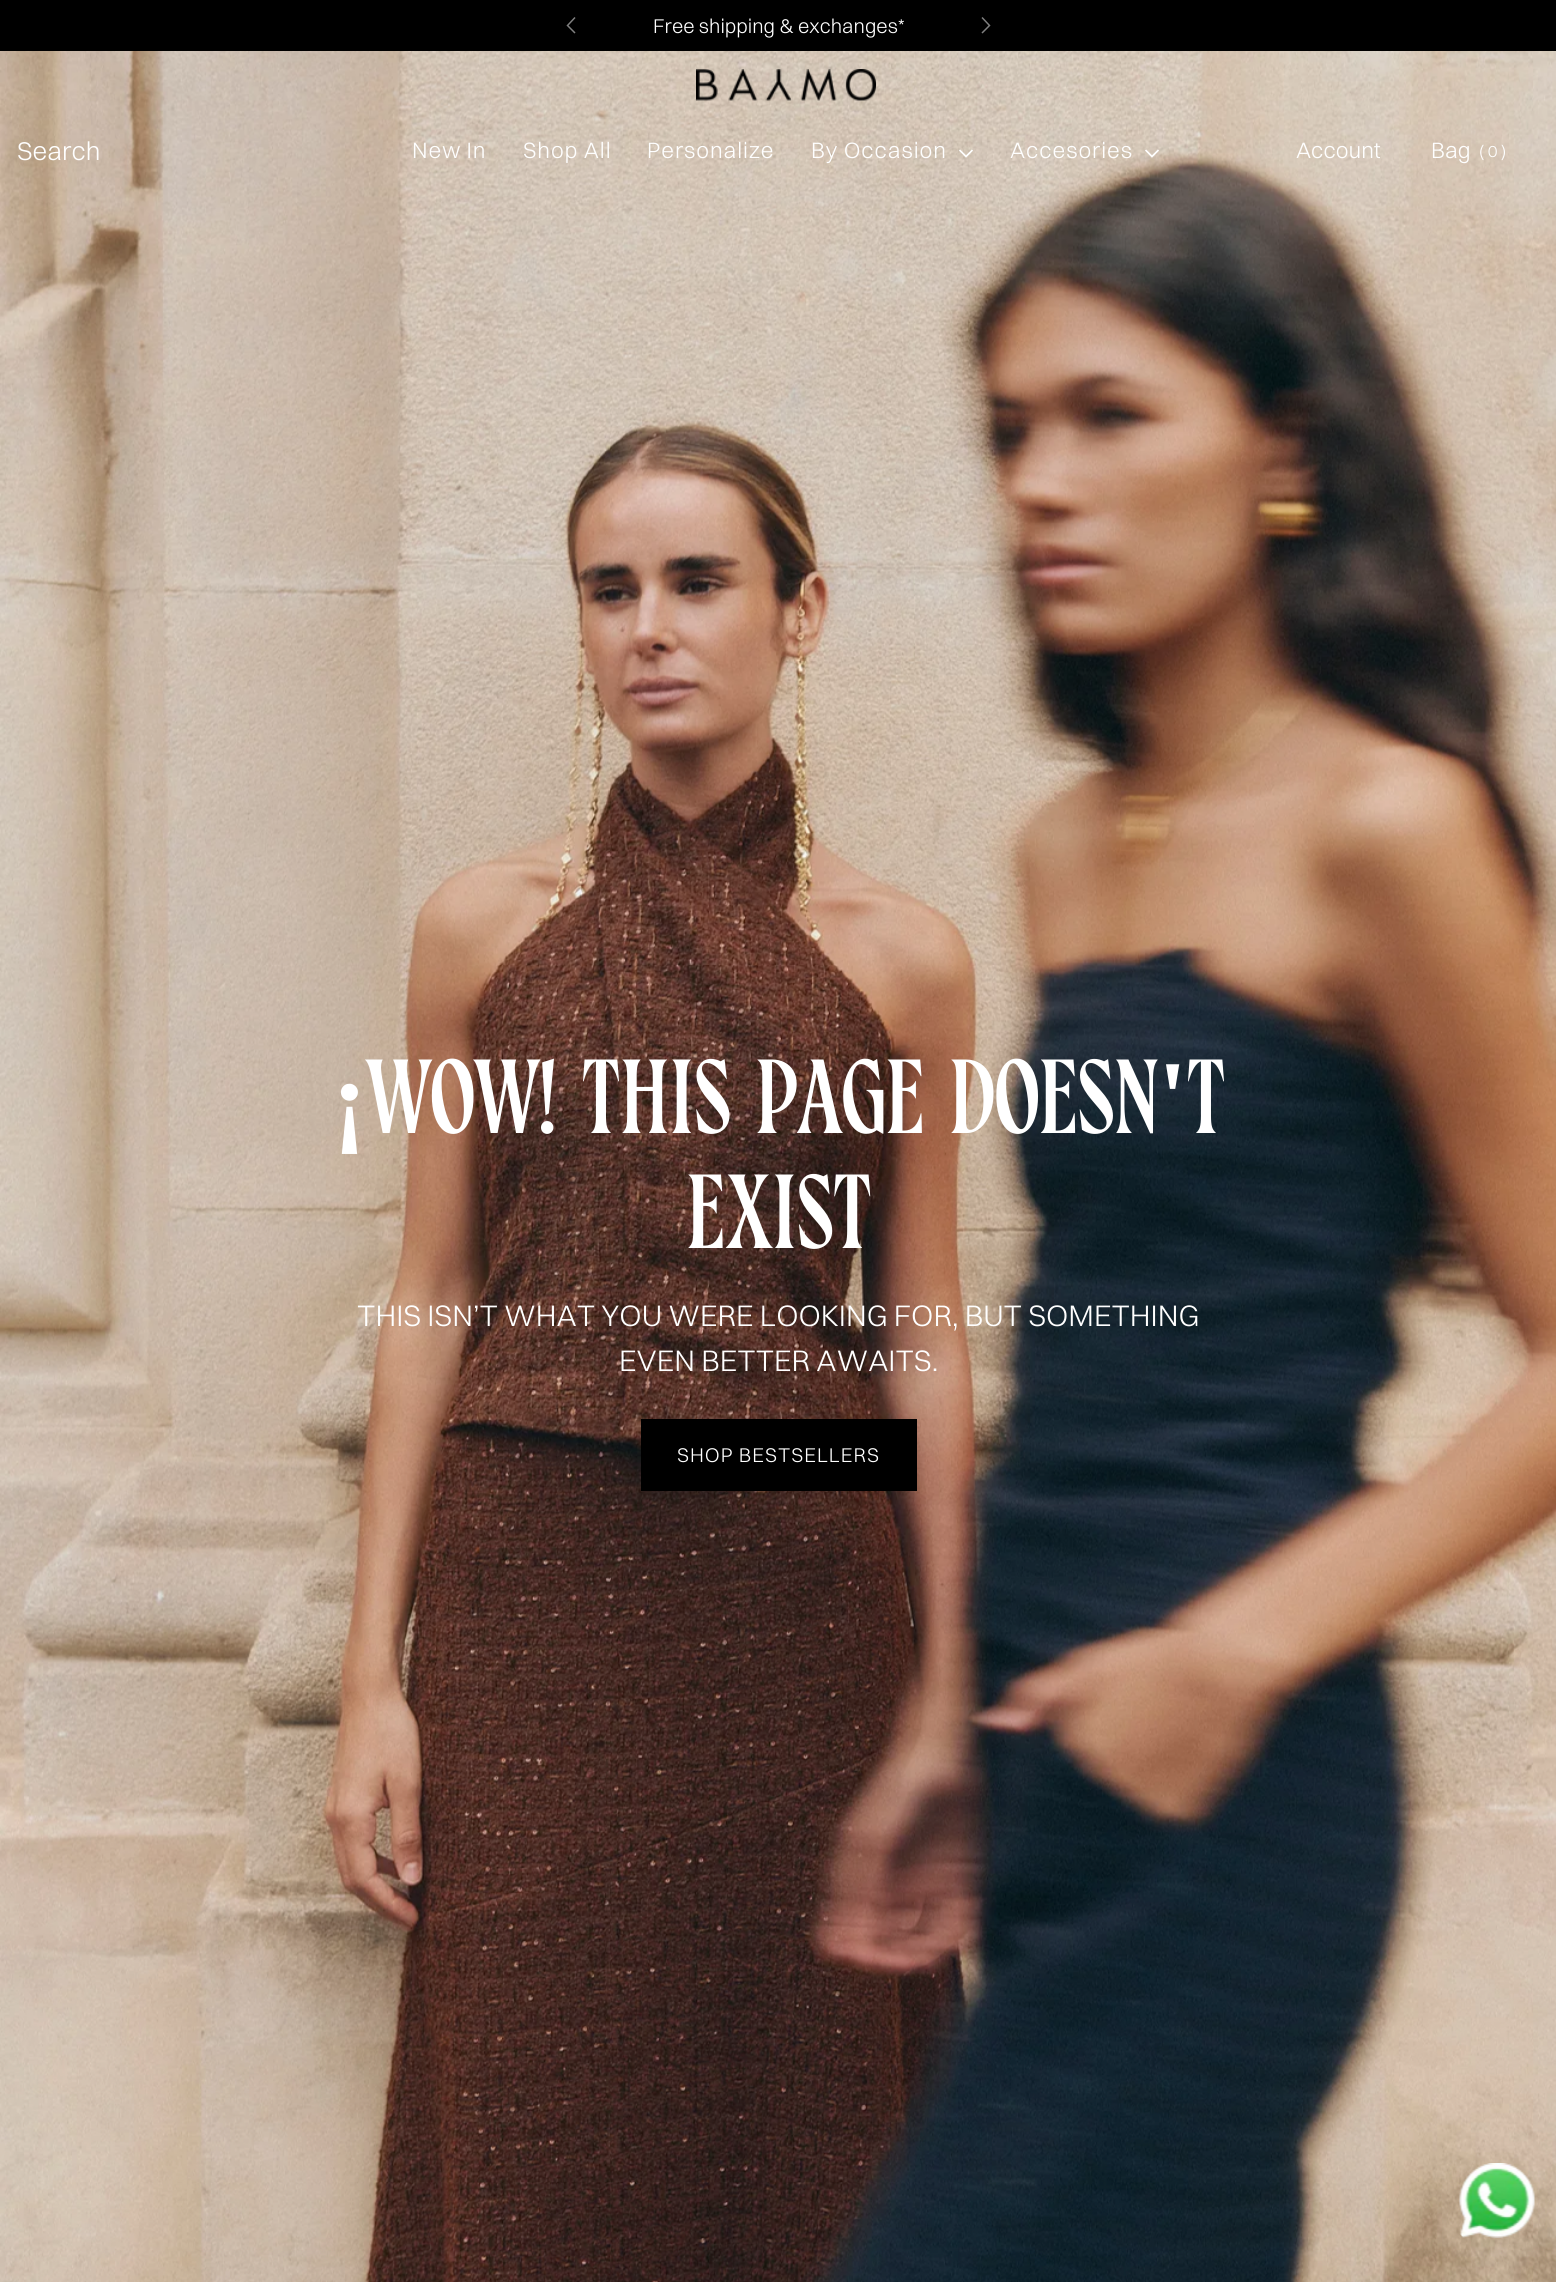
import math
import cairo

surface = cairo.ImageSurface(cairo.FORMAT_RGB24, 1556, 2282)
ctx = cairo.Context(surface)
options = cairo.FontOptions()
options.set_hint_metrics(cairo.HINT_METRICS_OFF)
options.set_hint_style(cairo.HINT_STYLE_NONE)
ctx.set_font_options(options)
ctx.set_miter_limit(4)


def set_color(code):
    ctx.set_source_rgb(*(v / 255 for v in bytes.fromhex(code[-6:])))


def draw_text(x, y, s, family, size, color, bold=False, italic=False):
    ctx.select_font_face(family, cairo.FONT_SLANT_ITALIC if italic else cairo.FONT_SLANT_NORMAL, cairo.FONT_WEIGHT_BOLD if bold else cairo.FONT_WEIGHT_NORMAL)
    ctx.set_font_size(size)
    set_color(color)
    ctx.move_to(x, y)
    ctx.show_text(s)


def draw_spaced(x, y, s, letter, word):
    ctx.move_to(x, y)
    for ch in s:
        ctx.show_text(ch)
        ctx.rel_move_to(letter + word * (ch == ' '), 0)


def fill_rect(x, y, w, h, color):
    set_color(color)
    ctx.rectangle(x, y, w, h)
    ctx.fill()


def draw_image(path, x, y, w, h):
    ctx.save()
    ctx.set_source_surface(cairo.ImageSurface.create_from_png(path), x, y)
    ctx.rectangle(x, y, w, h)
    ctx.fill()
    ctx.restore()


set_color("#ffffff")
ctx.paint()
fill_rect(0, 0, 1556, 51, "#000000")
ctx.new_path()
ctx.move_to(575, 17.5)
ctx.line_to(567.5, 25.5)
ctx.line_to(575, 33)
set_color("#808080")
ctx.set_line_width(1.5)
ctx.stroke()
ctx.new_path()
ctx.move_to(982, 33)
ctx.line_to(989.5, 25.5)
ctx.line_to(982, 17.5)
ctx.stroke()
draw_text(653, 33, "Free shipping & exchanges*", "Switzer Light", 20.1, "#ffffff")
draw_image("assets/img2.png", 0, 51, 1556, 2231)
draw_image("assets/img1.png", 696, 69, 180, 32)
draw_text(17, 160, "Search", "Switzer Light", 26, "#ffffff")
ctx.set_font_size(22.5)
draw_spaced(412, 158, "New In", 0.9, 0)
draw_spaced(523, 158, "Shop All", 0.9, 0)
draw_spaced(647, 158, "Personalize", 0.9, 0)
draw_spaced(811, 158, "By Occasion", 0.9, 0)
ctx.new_path()
ctx.move_to(959.5, 150)
ctx.line_to(966, 156.5)
ctx.line_to(972.5, 150)
ctx.set_line_width(1.7)
ctx.stroke()
draw_spaced(1010, 158, "Accesories", 0.9, 0)
ctx.new_path()
ctx.move_to(1145.5, 150)
ctx.line_to(1152, 156.5)
ctx.line_to(1158.5, 150)
ctx.stroke()
draw_text(1296, 158, "Account", "Switzer Light", 22.5, "#ffffff")
draw_text(1431, 158, "Bag", "Switzer Light", 22.5, "#ffffff")
draw_text(1479, 157, "( 0 )", "Switzer Light", 17, "#ffffff")
ctx.select_font_face("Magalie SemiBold")
ctx.set_font_size(105)
draw_spaced(366, 1133, "WOW!", -1, 0)
draw_spaced(581, 1133, "THIS", -1, 0)
draw_spaced(755, 1133, "PAGE", -1, 0)
draw_spaced(949, 1133, "DOESN", -1, 0)
ctx.select_font_face("Liberation Serif", cairo.FONT_SLANT_NORMAL, cairo.FONT_WEIGHT_BOLD)
draw_spaced(1158, 1133, "'", -1, 0)
ctx.select_font_face("Magalie SemiBold")
draw_spaced(1186, 1133, "T", -1, 0)
ctx.select_font_face("Liberation Serif", cairo.FONT_SLANT_NORMAL, cairo.FONT_WEIGHT_BOLD)
draw_spaced(332, 1133, "¡", -1, 0)
ctx.select_font_face("Magalie SemiBold")
draw_spaced(686, 1248, "EXIST", -1, 0)
draw_text(357, 1326, "THIS ISN’T WHAT YOU WERE LOOKING FOR, BUT SOMETHING", "Switzer Light", 30, "#ffffff")
draw_text(619, 1371, "EVEN BETTER AWAITS.", "Switzer Light", 30, "#ffffff")
ctx.save()
ctx.rectangle(641, 1419, 276, 72)
ctx.clip()
set_color("#000000")
ctx.new_path()
ctx.move_to(579, 1419)
ctx.line_to(936, 1419)
ctx.line_to(978, 1491)
ctx.line_to(621, 1491)
ctx.close_path()
ctx.fill()
ctx.restore()
ctx.set_font_size(20.1)
draw_spaced(677, 1462, "SHOP BESTSELLERS", 1, 0)
draw_image("assets/img3.png", 1459, 2163, 76, 75)
surface.write_to_png("output.png")
